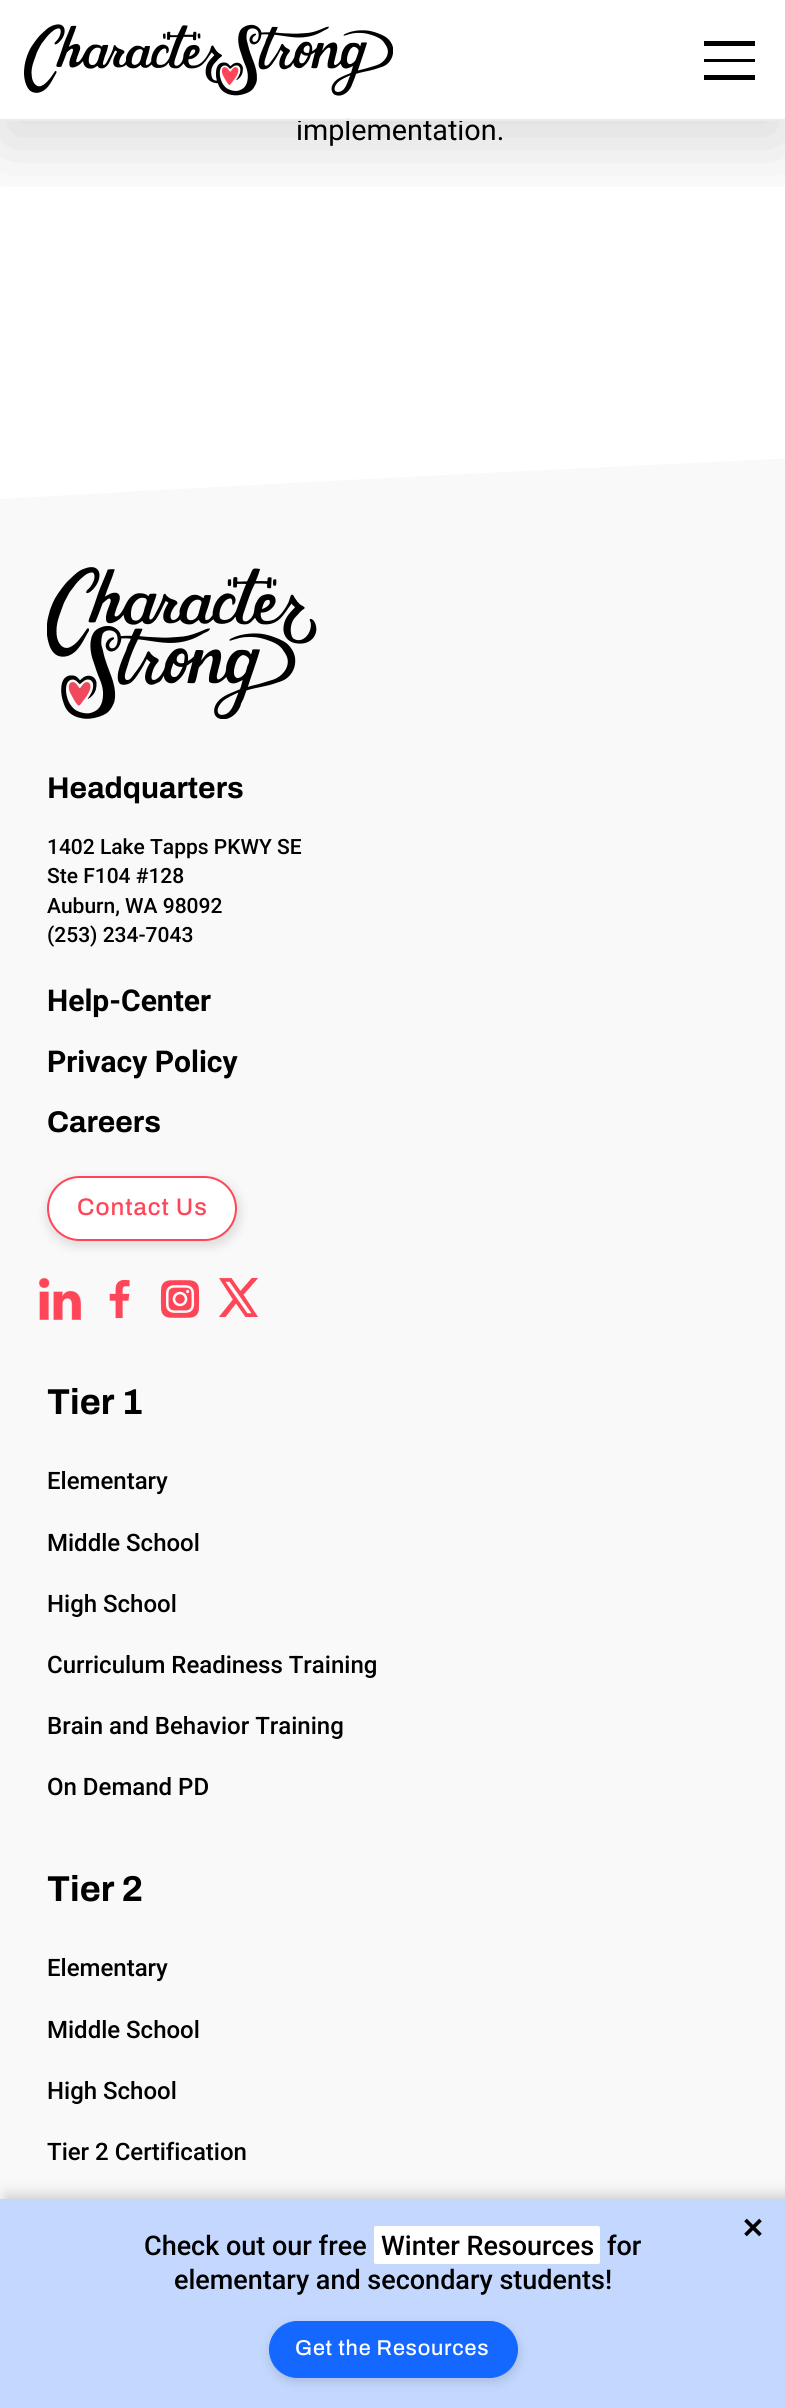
import math
import cairo

surface = cairo.ImageSurface(cairo.FORMAT_RGB24, 785, 2408)
ctx = cairo.Context(surface)
options = cairo.FontOptions()
options.set_hint_metrics(cairo.HINT_METRICS_OFF)
options.set_hint_style(cairo.HINT_STYLE_NONE)
ctx.set_font_options(options)
ctx.set_miter_limit(4)


def set_color(code):
    ctx.set_source_rgb(*(v / 255 for v in bytes.fromhex(code[-6:])))


def draw_text(x, y, s, family, size, color, bold=False, italic=False):
    ctx.select_font_face(family, cairo.FONT_SLANT_ITALIC if italic else cairo.FONT_SLANT_NORMAL, cairo.FONT_WEIGHT_BOLD if bold else cairo.FONT_WEIGHT_NORMAL)
    ctx.set_font_size(size)
    set_color(color)
    ctx.move_to(x, y)
    ctx.show_text(s)


def draw_spaced(x, y, s, letter, word):
    ctx.move_to(x, y)
    for ch in s:
        ctx.show_text(ch)
        ctx.rel_move_to(letter + word * (ch == ' '), 0)


def fill_rect(x, y, w, h, color):
    set_color(color)
    ctx.rectangle(x, y, w, h)
    ctx.fill()


def rounded_rect(x, y, w, h, r):
    ctx.new_sub_path()
    for i, (u, v) in enumerate([(x + w - r, y + h - r), (x + r, y + h - r), (x + r, y + r), (x + w - r, y + r)]):
        ctx.arc(u, v, r, i * math.pi / 2, (i + 1) * math.pi / 2)
    ctx.close_path()


def draw_shadow(x, y, w, h, r, blur, alpha):
    ctx.push_group_with_content(cairo.CONTENT_ALPHA)
    ctx.set_operator(cairo.OPERATOR_SOURCE)
    for i in range(15, -16, -2):
        e = blur * i / 6
        if min(w, h) + 2 * e > 0:
            ctx.set_source_rgba(0, 0, 0, alpha * math.erfc((i - 1) / 8.5) / 2)
            rounded_rect(x - e, y - e, w + 2 * e, h + 2 * e, max(0, min(r + e + blur * .6, min(w, h) / 2 + e)))
            ctx.fill()
    ctx.mask(ctx.pop_group())


def draw_image(path, x, y, w, h):
    ctx.save()
    ctx.set_source_surface(cairo.ImageSurface.create_from_png(path), x, y)
    ctx.rectangle(x, y, w, h)
    ctx.fill()
    ctx.restore()


set_color("#ffffff")
ctx.paint()
ctx.save()
ctx.rectangle(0, 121, 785, 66)
ctx.clip()
set_color("#000000")
draw_shadow(0, 24, 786, 120, 0, 39, 0.15)
ctx.restore()
draw_text(296, 140, "implementation.", "Roboto", 28.75, "#000000")
ctx.set_source_rgba(1, 1, 1, 0.84)
ctx.rectangle(346, 118, 4, 1)
ctx.fill()
fill_rect(0, 119, 785, 2, "#e9ecef")
draw_image("assets/img1.png", 24, 24, 369, 72)
fill_rect(704, 59, 51, 3, "#000000")
fill_rect(704, 41, 51, 5, "#000000")
fill_rect(704, 75, 51, 5, "#000000")
set_color("#f9f9f9")
ctx.new_path()
ctx.move_to(0, 499)
ctx.curve_to(0, 499, 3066, 317, 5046, 394)
ctx.curve_to(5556, 414, 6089, 453, 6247, 531)
ctx.line_to(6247, 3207)
ctx.line_to(0, 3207)
ctx.close_path()
ctx.fill()
draw_image("assets/img2.png", 47, 567, 270, 152)
draw_text(47, 798, "Headquarters", "Archivo", 30, "#000000", bold=True)
draw_text(47, 854, "1402 Lake Tapps PKWY SE", "Roboto Medium", 21, "#000000")
draw_text(47, 883, "Ste F104 #128", "Roboto Medium", 21, "#000000")
draw_text(47, 913, "Auburn, WA 98092", "Roboto Medium", 21, "#000000")
draw_text(47, 942, "(253) 234-7043", "Roboto Medium", 21, "#000000")
draw_text(47, 1011, "Help-Center", "Roboto", 30, "#000000", bold=True)
draw_text(47, 1072, "Privacy Policy", "Roboto", 30, "#000000", bold=True)
draw_text(47, 1132, "Careers", "Archivo", 30, "#000000", bold=True)
set_color("#000000")
draw_shadow(48, 1181, 191, 64, 32, 6, 0.14)
set_color("#ffffff")
rounded_rect(48, 1177, 188, 63, 31.5)
ctx.fill_preserve()
set_color("#ff4658")
ctx.stroke()
ctx.select_font_face("Archivo Medium")
ctx.set_font_size(24)
draw_spaced(77, 1215, "Contact Us", 1, 0)
draw_image("assets/img3.png", 39, 1278, 42, 42)
draw_image("assets/img4.png", 109, 1279, 21, 40)
draw_image("assets/img5.png", 160, 1280, 40, 38)
draw_image("assets/img6.png", 219, 1278, 39, 39)
draw_text(47, 1414, "Tier 1", "Archivo", 36, "#000000", bold=True)
draw_text(47, 1489, "Elementary", "Roboto Medium", 24, "#000000")
draw_text(47, 1551, "Middle School", "Roboto Medium", 24, "#000000")
draw_text(47, 1612, "High School", "Roboto Medium", 24, "#000000")
draw_text(47, 1673, "Curriculum Readiness Training", "Roboto Medium", 24, "#000000")
draw_text(47, 1734, "Brain and Behavior Training", "Roboto Medium", 24, "#000000")
draw_text(47, 1795, "On Demand PD", "Roboto Medium", 24, "#000000")
draw_text(47, 1901, "Tier 2", "Archivo", 36, "#000000", bold=True)
draw_text(47, 1976, "Elementary", "Roboto Medium", 24, "#000000")
draw_text(47, 2038, "Middle School", "Roboto Medium", 24, "#000000")
draw_text(47, 2099, "High School", "Roboto Medium", 24, "#000000")
draw_text(47, 2160, "Tier 2 Certification", "Roboto Medium", 24, "#000000")
set_color("#000000")
draw_shadow(6, 2195, 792, 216, 0, 7.5, 0.19)
fill_rect(0, 2199, 785, 209, "#c4d8ff")
draw_image("assets/img7.png", 744, 2218, 18, 19)
draw_text(144, 2255, "Check out our free", "Roboto Medium", 27, "#000000")
set_color("#ffffff")
rounded_rect(374, 2226, 226, 38, 2)
ctx.fill()
draw_text(381, 2255, "Winter Resources", "Roboto Medium", 27, "#000000")
draw_text(607, 2255, "for", "Roboto Medium", 27, "#000000")
draw_text(174, 2289, "elementary and secondary students!", "Roboto Medium", 27, "#000000")
set_color("#000000")
draw_shadow(270, 2325, 249, 57, 28.5, 5.5, 0.14)
set_color("#1467ff")
rounded_rect(269.5, 2321.5, 248, 56, 28)
ctx.fill_preserve()
ctx.set_line_width(1)
ctx.stroke()
ctx.select_font_face("Archivo Medium")
ctx.set_font_size(21.5)
set_color("#ffffff")
draw_spaced(295, 2355, "Get the Resources", 0.8, 0)
surface.write_to_png("output.png")
